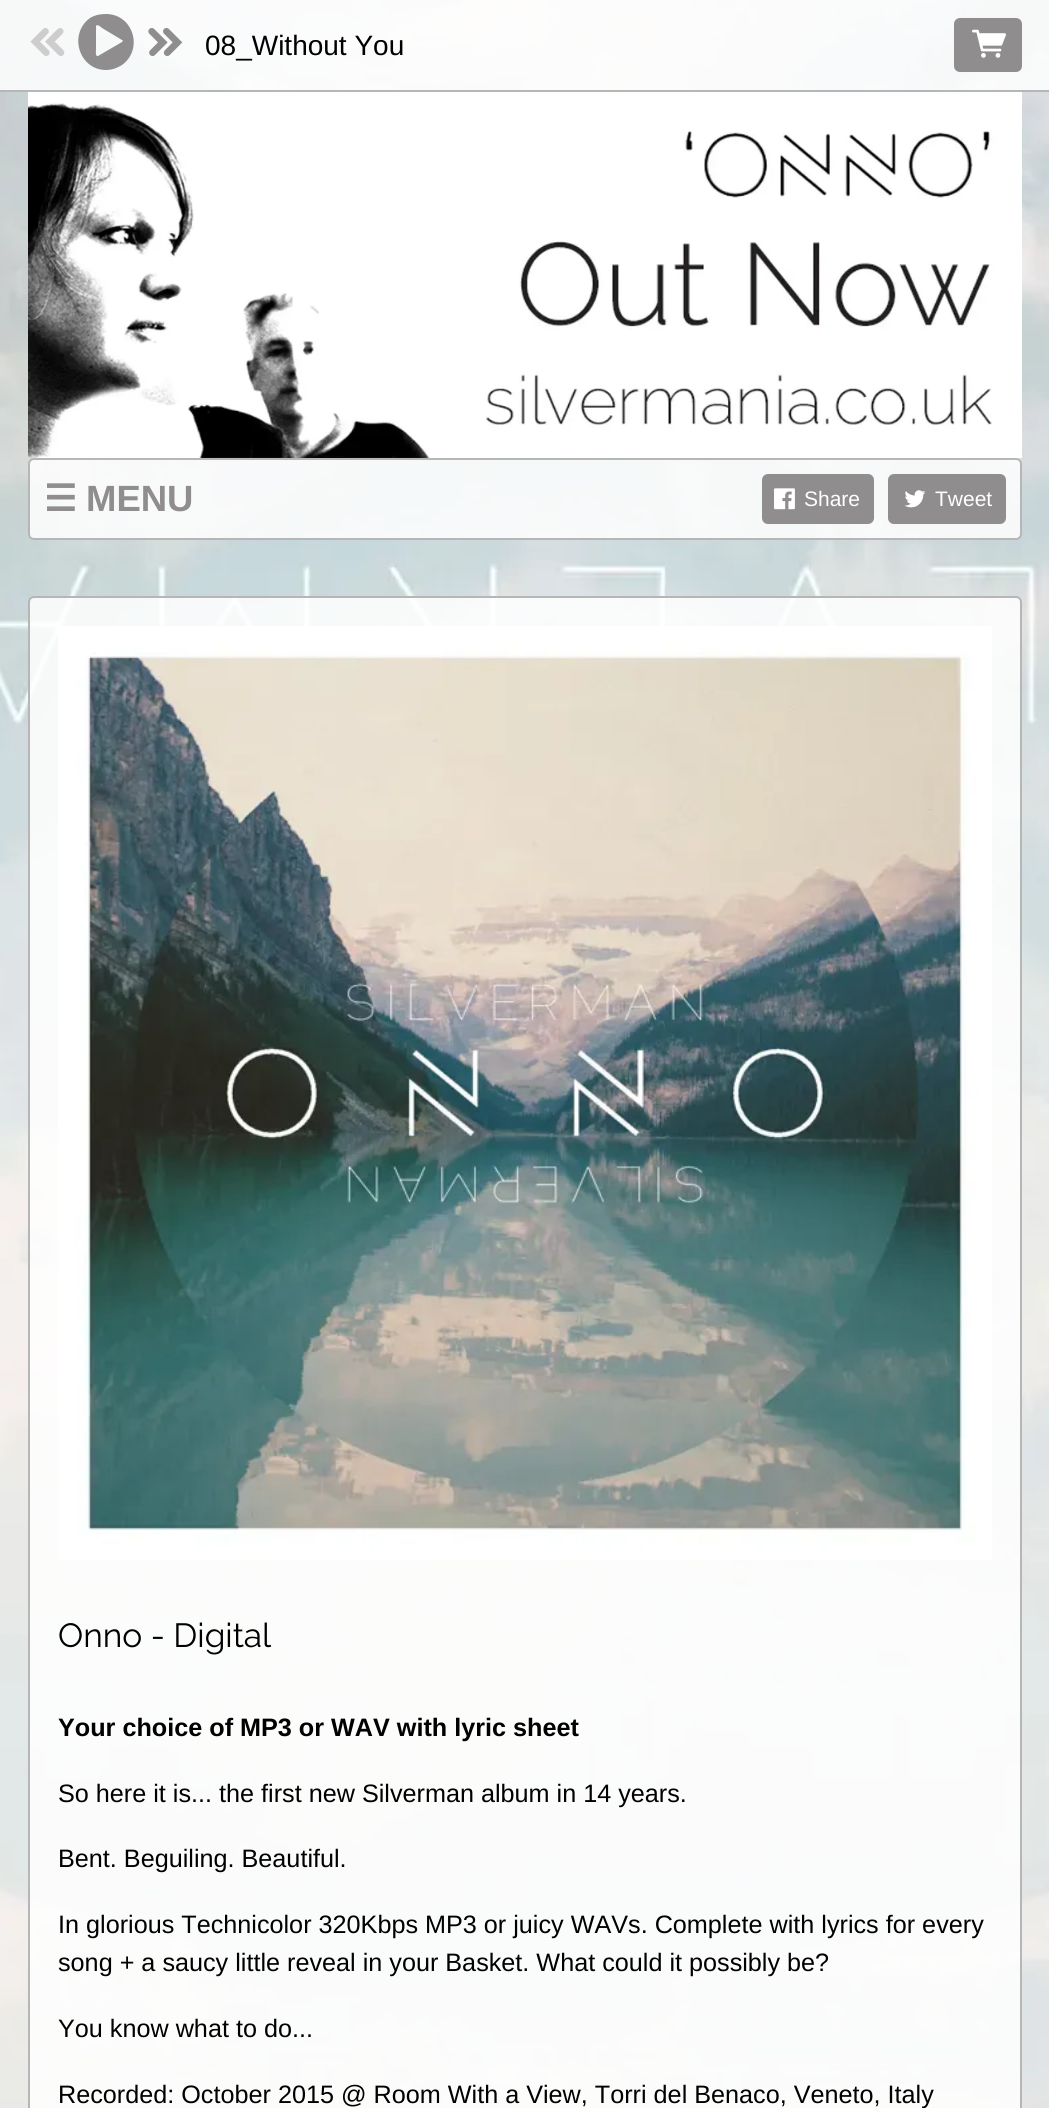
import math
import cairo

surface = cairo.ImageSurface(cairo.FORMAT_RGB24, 1049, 2108)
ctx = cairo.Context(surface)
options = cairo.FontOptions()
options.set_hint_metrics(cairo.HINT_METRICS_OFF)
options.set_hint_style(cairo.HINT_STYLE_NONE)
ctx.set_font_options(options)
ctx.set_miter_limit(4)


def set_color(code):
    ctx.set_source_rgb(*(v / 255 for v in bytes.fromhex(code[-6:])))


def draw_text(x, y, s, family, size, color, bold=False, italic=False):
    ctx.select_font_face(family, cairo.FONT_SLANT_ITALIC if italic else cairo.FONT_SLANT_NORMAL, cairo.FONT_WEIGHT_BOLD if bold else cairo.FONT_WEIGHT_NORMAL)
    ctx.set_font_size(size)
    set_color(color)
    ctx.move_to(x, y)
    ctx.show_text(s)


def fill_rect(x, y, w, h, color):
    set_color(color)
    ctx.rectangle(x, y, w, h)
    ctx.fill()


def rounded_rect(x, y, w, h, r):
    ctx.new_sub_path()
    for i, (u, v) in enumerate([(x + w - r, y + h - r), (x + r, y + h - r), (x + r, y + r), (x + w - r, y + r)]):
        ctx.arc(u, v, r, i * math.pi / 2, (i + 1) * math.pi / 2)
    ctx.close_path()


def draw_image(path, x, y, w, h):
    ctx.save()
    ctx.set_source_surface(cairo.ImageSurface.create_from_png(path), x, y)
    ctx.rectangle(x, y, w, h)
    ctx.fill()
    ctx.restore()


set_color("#ffffff")
ctx.paint()
draw_image("assets/img1.png", 0, 0, 1049, 2108)
ctx.set_source_rgba(1, 1, 1, 0.85)
ctx.rectangle(0, 0, 1049, 90)
ctx.fill()
fill_rect(0, 90, 1049, 2, "#b6b6b6")
draw_image("assets/img2.png", 30, 28, 35, 28)
set_color("#8f8d8d")
ctx.new_path()
ctx.move_to(106, 14)
ctx.curve_to(100, 14, 95, 15, 90, 18)
ctx.curve_to(68, 34, 79, 70, 106, 70)
ctx.curve_to(112, 70, 117, 68, 122, 65)
ctx.curve_to(144, 49, 133, 14, 106, 14)
ctx.close_path()
ctx.move_to(122, 42)
ctx.line_to(98, 56)
ctx.curve_to(95, 57, 96, 50, 96, 50)
ctx.line_to(96, 26)
ctx.curve_to(97, 24, 100, 26, 102, 28)
ctx.line_to(122, 40)
ctx.curve_to(123, 40, 123, 41, 122, 42)
ctx.close_path()
ctx.fill()
draw_image("assets/img3.png", 148, 28, 35, 28)
draw_text(205, 55, "08_Without You", "Liberation Sans", 28, "#000000")
set_color("#8f8d8d")
rounded_rect(954, 18, 68, 54, 6)
ctx.fill()
draw_image("assets/img4.png", 972, 29, 34, 29)
draw_image("assets/img5.png", 28, 92, 994, 366)
ctx.set_source_rgba(1, 1, 1, 0.85)
rounded_rect(29, 459, 992, 80, 5)
ctx.fill_preserve()
set_color("#b6b6b6")
ctx.stroke()
draw_text(44, 511, "☰", "DejaVu Sans", 36.5, "#8f8d8d", bold=True)
draw_text(86, 511, "MENU", "Liberation Sans", 36.5, "#8f8d8d", bold=True)
rounded_rect(762, 474, 112, 50, 6)
ctx.fill()
draw_image("assets/img6.png", 774, 488, 21, 22)
draw_text(804, 506, "Share", "Liberation Sans", 21, "#ffffff")
set_color("#8f8d8d")
rounded_rect(888, 474, 118, 50, 6)
ctx.fill()
draw_image("assets/img7.png", 904, 490, 22, 18)
draw_text(935, 506, "Tweet", "Liberation Sans", 21, "#ffffff")
ctx.set_source_rgba(1, 1, 1, 0.85)
rounded_rect(29, 597, 992, 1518, 5)
ctx.fill_preserve()
set_color("#b6b6b6")
ctx.stroke()
draw_image("assets/img8.png", 58, 626, 934, 934)
draw_text(58, 1647, "Onno - Digital", "Raleway Thin", 33.5, "#000000")
draw_text(58, 1736, "Your choice of MP3 or WAV with lyric sheet", "Liberation Sans", 25.2, "#000000", bold=True)
draw_text(58, 1802, "So here it is... the first new Silverman album in 14 years.", "Liberation Sans", 25.2, "#000000")
draw_text(58, 1867, "Bent. Beguiling. Beautiful.", "Liberation Sans", 25.2, "#000000")
draw_text(58, 1933, "In glorious Technicolor 320Kbps MP3 or juicy WAVs. Complete with lyrics for every", "Liberation Sans", 25.2, "#000000")
draw_text(58, 1971, "song + a saucy little reveal in your Basket. What could it possibly be?", "Liberation Sans", 25.2, "#000000")
draw_text(58, 2037, "You know what to do...", "Liberation Sans", 25.2, "#000000")
draw_text(58, 2103, "Recorded: October 2015 @ Room With a View, Torri del Benaco, Veneto, Italy", "Liberation Sans", 25.2, "#000000")
surface.write_to_png("output.png")
